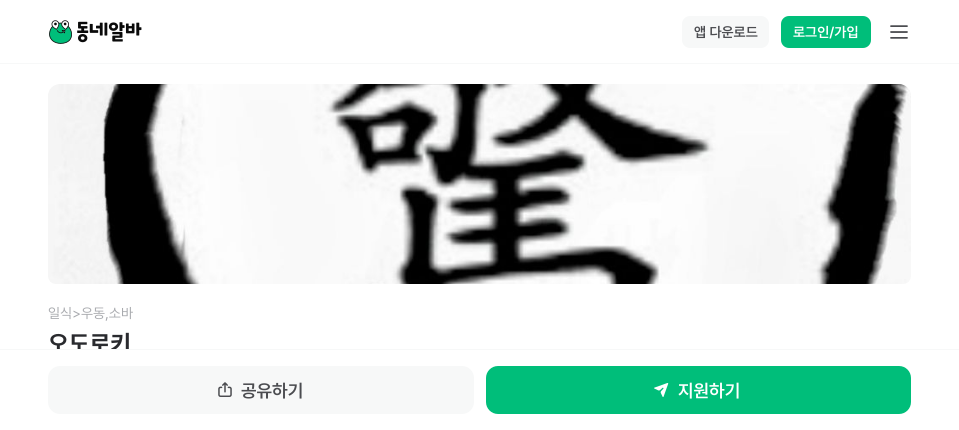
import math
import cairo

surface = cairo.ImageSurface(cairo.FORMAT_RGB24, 959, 430)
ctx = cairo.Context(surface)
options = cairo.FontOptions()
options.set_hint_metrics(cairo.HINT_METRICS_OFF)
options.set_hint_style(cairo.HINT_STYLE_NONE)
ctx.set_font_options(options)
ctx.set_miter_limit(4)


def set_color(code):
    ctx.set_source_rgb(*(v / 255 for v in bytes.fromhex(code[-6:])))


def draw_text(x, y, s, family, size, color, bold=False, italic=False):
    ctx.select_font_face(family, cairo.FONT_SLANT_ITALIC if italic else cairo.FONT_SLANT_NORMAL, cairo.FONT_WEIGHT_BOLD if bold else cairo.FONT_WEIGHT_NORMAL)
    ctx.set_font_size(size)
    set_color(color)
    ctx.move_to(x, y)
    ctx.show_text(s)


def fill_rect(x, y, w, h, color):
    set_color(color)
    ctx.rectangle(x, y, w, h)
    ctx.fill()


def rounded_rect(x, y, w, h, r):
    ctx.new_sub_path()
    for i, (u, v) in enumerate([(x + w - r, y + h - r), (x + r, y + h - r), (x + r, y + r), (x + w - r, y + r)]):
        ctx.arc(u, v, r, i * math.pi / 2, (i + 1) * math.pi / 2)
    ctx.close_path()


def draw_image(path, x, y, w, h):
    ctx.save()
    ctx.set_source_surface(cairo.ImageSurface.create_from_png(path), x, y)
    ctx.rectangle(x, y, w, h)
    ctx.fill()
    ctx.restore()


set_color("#f7f8f8")
ctx.paint()
fill_rect(0, 0, 959, 63, "#ffffff")
draw_image("assets/img1.png", 49, 20, 93, 24)
set_color("#f7f8f8")
rounded_rect(682, 16, 87, 32, 8)
ctx.fill()
draw_text(694, 37, "앱 다운로드", "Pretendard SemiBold", 14, "#4b4c50")
set_color("#00be7a")
rounded_rect(781, 16, 90, 32, 8)
ctx.fill()
draw_text(793, 37, "로그인/가입", "Pretendard SemiBold", 14, "#ffffff")
draw_image("assets/img2.png", 890, 25, 18, 14)
fill_rect(0, 64, 959, 285, "#ffffff")
draw_image("assets/img3.png", 48, 84, 863, 200)
draw_text(48, 318, "일식>우동,소바", "Pretendard", 14, "#a9abaf")
draw_text(48, 352, "오도로키", "Pretendard", 24, "#292a2e", bold=True)
fill_rect(0, 350, 959, 80, "#ffffff")
fill_rect(48, 349, 81, 1, "#f7f8f8")
rounded_rect(48, 366, 426, 48, 12)
ctx.fill()
draw_image("assets/img4.png", 218, 382, 14, 15)
draw_text(241, 397, "공유하기", "Pretendard SemiBold", 18, "#4b4c50")
set_color("#00be7a")
rounded_rect(486, 366, 425, 48, 12)
ctx.fill()
draw_image("assets/img5.png", 654, 383, 15, 14)
draw_text(678, 397, "지원하기", "Pretendard SemiBold", 18, "#ffffff")
surface.write_to_png("output.png")
